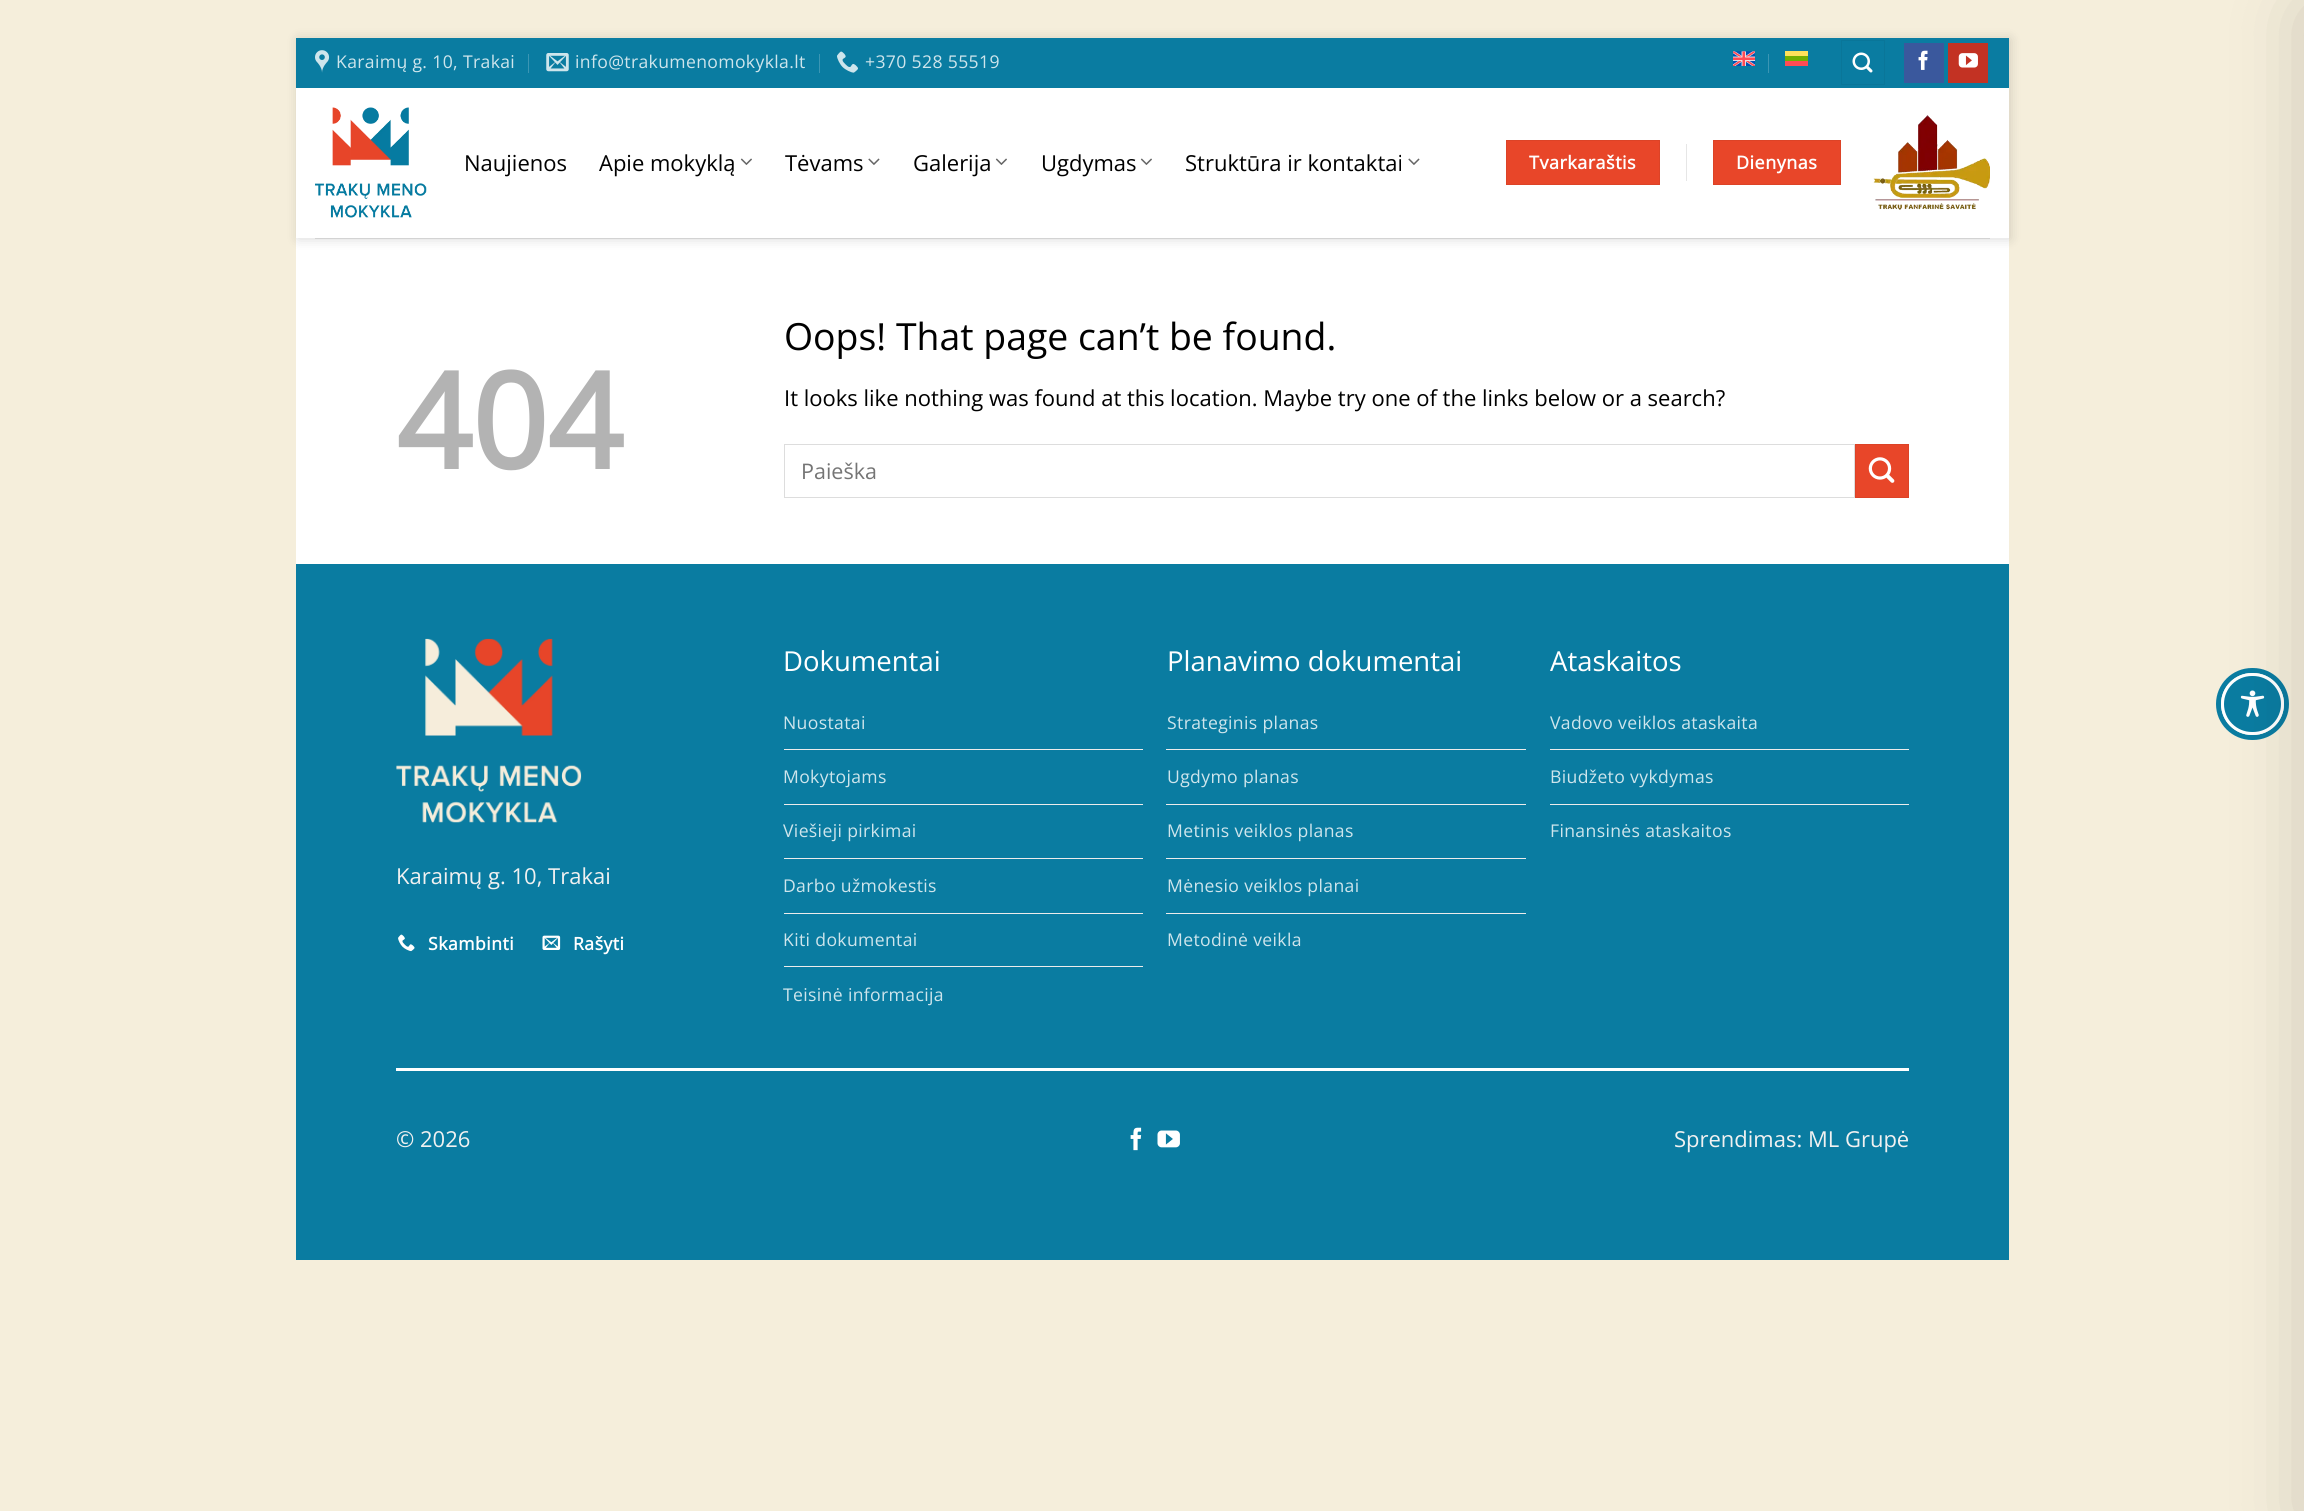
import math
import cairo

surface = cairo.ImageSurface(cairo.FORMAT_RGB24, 2304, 1511)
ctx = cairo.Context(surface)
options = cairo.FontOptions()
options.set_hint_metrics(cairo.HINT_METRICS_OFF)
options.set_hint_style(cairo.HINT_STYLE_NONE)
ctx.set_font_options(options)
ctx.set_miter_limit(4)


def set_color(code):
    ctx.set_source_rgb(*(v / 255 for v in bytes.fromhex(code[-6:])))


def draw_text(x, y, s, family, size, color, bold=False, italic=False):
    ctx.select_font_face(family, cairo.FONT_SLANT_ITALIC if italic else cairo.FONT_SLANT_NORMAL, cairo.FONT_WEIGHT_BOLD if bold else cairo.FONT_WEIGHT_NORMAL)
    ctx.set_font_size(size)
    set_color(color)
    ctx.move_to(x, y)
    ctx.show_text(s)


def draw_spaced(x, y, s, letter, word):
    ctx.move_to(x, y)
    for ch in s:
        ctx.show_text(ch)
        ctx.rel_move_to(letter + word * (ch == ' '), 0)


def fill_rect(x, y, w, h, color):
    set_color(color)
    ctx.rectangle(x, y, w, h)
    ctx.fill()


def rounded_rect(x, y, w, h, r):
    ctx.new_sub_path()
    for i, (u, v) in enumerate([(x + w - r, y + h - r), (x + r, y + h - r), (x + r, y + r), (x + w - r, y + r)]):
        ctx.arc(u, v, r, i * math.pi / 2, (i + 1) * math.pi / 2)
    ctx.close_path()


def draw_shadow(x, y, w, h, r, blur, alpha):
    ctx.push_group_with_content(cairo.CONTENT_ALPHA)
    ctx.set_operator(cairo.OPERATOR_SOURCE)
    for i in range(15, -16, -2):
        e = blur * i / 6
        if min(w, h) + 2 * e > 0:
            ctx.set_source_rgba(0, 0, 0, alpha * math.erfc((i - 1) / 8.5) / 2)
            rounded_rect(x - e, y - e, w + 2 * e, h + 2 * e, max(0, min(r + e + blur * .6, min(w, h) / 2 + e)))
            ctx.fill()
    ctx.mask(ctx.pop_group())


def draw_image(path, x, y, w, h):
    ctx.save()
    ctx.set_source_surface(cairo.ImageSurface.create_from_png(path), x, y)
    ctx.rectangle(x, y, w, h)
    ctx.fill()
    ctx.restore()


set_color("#f5eedb")
ctx.paint()
fill_rect(296, 238, 1713, 326, "#ffffff")
set_color("#000000")
draw_shadow(298, 39, 1712, 200, 0, 6, 0.15)
fill_rect(296, 38, 1713, 50, "#0a7ca1")
draw_image("assets/img1.png", 315, 50, 15, 23)
ctx.select_font_face("Open Sans")
ctx.set_font_size(17.6)
set_color("#cee5ec")
draw_spaced(336, 68, "Karaimų g. 10, Trakai", 0.35, 0)
fill_rect(528, 54, 1, 19, "#3b96b4")
draw_image("assets/img2.png", 546, 53, 23, 19)
set_color("#cee5ec")
draw_spaced(575, 68, "info@trakumenomokykla.lt", 0.35, 0)
fill_rect(819, 54, 1, 19, "#3b96b4")
draw_image("assets/img3.png", 837, 51, 21, 22)
set_color("#cee5ec")
draw_spaced(865, 68, "+370 528 55519", 0.35, 0)
draw_image("assets/img4.png", 1733, 51, 22, 15)
fill_rect(1768, 54, 1, 19, "#3b96b4")
fill_rect(1785, 61, 23, 5, "#ff4b55")
fill_rect(1785, 56, 23, 5, "#73af00")
fill_rect(1785, 51, 23, 5, "#ffe15a")
ctx.rectangle(1841.5, 40.5, 43, 44)
set_color("#0a7699")
ctx.set_line_width(1)
ctx.stroke()
draw_image("assets/img5.png", 1852, 52, 21, 21)
fill_rect(1904, 43, 40, 40, "#3a589d")
draw_image("assets/img6.png", 1918, 50, 10, 20)
fill_rect(1948, 43, 40, 40, "#c33223")
draw_image("assets/img7.png", 1958, 53, 20, 15)
fill_rect(296, 88, 1713, 150, "#ffffff")
draw_image("assets/img8.png", 315, 107, 112, 111)
draw_text(464, 171, "Naujienos", "Open Sans", 22, "#000000")
draw_text(599, 171, "Apie mokyklą", "Open Sans", 22, "#000000")
draw_image("assets/img9.png", 740, 158, 12, 7)
draw_text(785, 171, "Tėvams", "Open Sans", 22, "#000000")
draw_image("assets/img10.png", 868, 158, 12, 7)
draw_text(913, 171, "Galerija", "Open Sans", 22, "#000000")
draw_image("assets/img9.png", 995, 158, 12, 7)
draw_text(1041, 171, "Ugdymas", "Open Sans", 22, "#000000")
draw_image("assets/img9.png", 1140, 158, 12, 7)
draw_text(1185, 171, "Struktūra ir kontaktai", "Open Sans", 22, "#000000")
draw_image("assets/img10.png", 1408, 158, 12, 7)
set_color("#e84629")
ctx.rectangle(1506.5, 140.5, 153, 44)
ctx.fill_preserve()
set_color("#dc4327")
ctx.stroke()
ctx.select_font_face("Open Sans", cairo.FONT_SLANT_NORMAL, cairo.FONT_WEIGHT_BOLD)
ctx.set_font_size(18)
set_color("#ffffff")
draw_spaced(1529, 169, "Tvarkaraštis", 0.5, 0)
fill_rect(1686, 144, 1, 37, "#e6e6e6")
set_color("#e84629")
ctx.rectangle(1713.5, 140.5, 127, 44)
ctx.fill_preserve()
set_color("#dc4327")
ctx.stroke()
set_color("#ffffff")
draw_spaced(1736, 169, "Dienynas", 0.5, 0)
draw_image("assets/img11.png", 1873, 115, 117, 95)
fill_rect(315, 238, 1675, 1, "#d3d3d3")
draw_text(396, 469, "404", "Open Sans", 132, "#b3b3b3", bold=True)
draw_text(784, 350, "Oops! That page can’t be found.", "Open Sans", 37.4, "#000000")
draw_text(784, 406, "It looks like nothing was found at this location. Maybe try one of the links below or a search?", "Open Sans", 22, "#000000")
ctx.rectangle(784.5, 444.5, 1070, 53)
set_color("#dddddd")
ctx.stroke()
draw_text(801, 479, "Paieška", "Open Sans", 21.5, "#757575")
set_color("#e84629")
ctx.rectangle(1855.5, 444.5, 53, 53)
ctx.fill_preserve()
set_color("#dc4327")
ctx.stroke()
draw_image("assets/img12.png", 1868, 457, 27, 26)
fill_rect(296, 564, 1713, 696, "#0a7ca1")
draw_image("assets/img13.png", 396, 638, 186, 185)
draw_text(396, 884, "Karaimų g. 10, Trakai", "Open Sans", 22, "#f1f1f1")
draw_image("assets/img14.png", 398, 934, 17, 18)
ctx.select_font_face("Open Sans", cairo.FONT_SLANT_NORMAL, cairo.FONT_WEIGHT_BOLD)
ctx.set_font_size(17.6)
set_color("#ffffff")
draw_spaced(428, 950, "Skambinti", 0.5, 0)
draw_image("assets/img15.png", 542, 935, 19, 15)
draw_spaced(573, 950, "Rašyti", 0.5, 0)
draw_text(783, 671, "Dokumentai", "Open Sans", 27.5, "#ffffff")
ctx.set_font_size(17.6)
set_color("#cee5ec")
draw_spaced(783, 729, "Nuostatai", 0.35, 0)
fill_rect(784, 749, 359, 1, "#ececec")
set_color("#cee5ec")
draw_spaced(783, 783, "Mokytojams", 0.35, 0)
fill_rect(784, 804, 359, 1, "#ececec")
set_color("#cee5ec")
draw_spaced(783, 837, "Viešieji pirkimai", 0.35, 0)
fill_rect(784, 858, 359, 1, "#ececec")
set_color("#cee5ec")
draw_spaced(783, 892, "Darbo užmokestis", 0.35, 0)
fill_rect(784, 913, 359, 1, "#ececec")
set_color("#cee5ec")
draw_spaced(783, 946, "Kiti dokumentai", 0.35, 0)
fill_rect(784, 966, 359, 1, "#ececec")
set_color("#cee5ec")
draw_spaced(783, 1001, "Teisinė informacija", 0.35, 0)
draw_text(1167, 671, "Planavimo dokumentai", "Open Sans", 27.5, "#ffffff")
ctx.set_font_size(17.6)
set_color("#cee5ec")
draw_spaced(1167, 729, "Strateginis planas", 0.35, 0)
fill_rect(1166, 749, 360, 1, "#ececec")
set_color("#cee5ec")
draw_spaced(1167, 783, "Ugdymo planas", 0.35, 0)
fill_rect(1166, 804, 360, 1, "#ececec")
set_color("#cee5ec")
draw_spaced(1167, 837, "Metinis veiklos planas", 0.35, 0)
fill_rect(1166, 858, 360, 1, "#ececec")
set_color("#cee5ec")
draw_spaced(1167, 892, "Mėnesio veiklos planai", 0.35, 0)
fill_rect(1166, 913, 360, 1, "#ececec")
set_color("#cee5ec")
draw_spaced(1167, 946, "Metodinė veikla", 0.35, 0)
draw_text(1550, 671, "Ataskaitos", "Open Sans", 27.5, "#ffffff")
ctx.set_font_size(17.6)
set_color("#cee5ec")
draw_spaced(1550, 729, "Vadovo veiklos ataskaita", 0.35, 0)
fill_rect(1550, 749, 359, 1, "#ececec")
set_color("#cee5ec")
draw_spaced(1550, 783, "Biudžeto vykdymas", 0.35, 0)
fill_rect(1550, 804, 359, 1, "#ececec")
set_color("#cee5ec")
draw_spaced(1550, 837, "Finansinės ataskaitos", 0.35, 0)
fill_rect(396, 1068, 1513, 3, "#ffffff")
draw_text(396, 1147, "© 2026", "Open Sans", 22, "#f1f1f1")
draw_image("assets/img16.png", 1130, 1127, 12, 24)
draw_image("assets/img17.png", 1157, 1130, 23, 18)
draw_text(1674, 1147, "Sprendimas: ML Grupė", "Open Sans", 22, "#f1f1f1")
rounded_rect(2218.5, 670.5, 68, 67, 33.5)
set_color("#0a7ca1")
ctx.set_line_width(5)
ctx.stroke()
rounded_rect(2222.5, 674.5, 60, 59, 29.5)
ctx.fill_preserve()
set_color("#ffffff")
ctx.set_line_width(3)
ctx.stroke()
draw_image("assets/img18.png", 2240, 690, 25, 27)
set_color("#000000")
draw_shadow(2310, 13, 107, 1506, 0, 37.5, 0.2)
surface.write_to_png("output.png")
